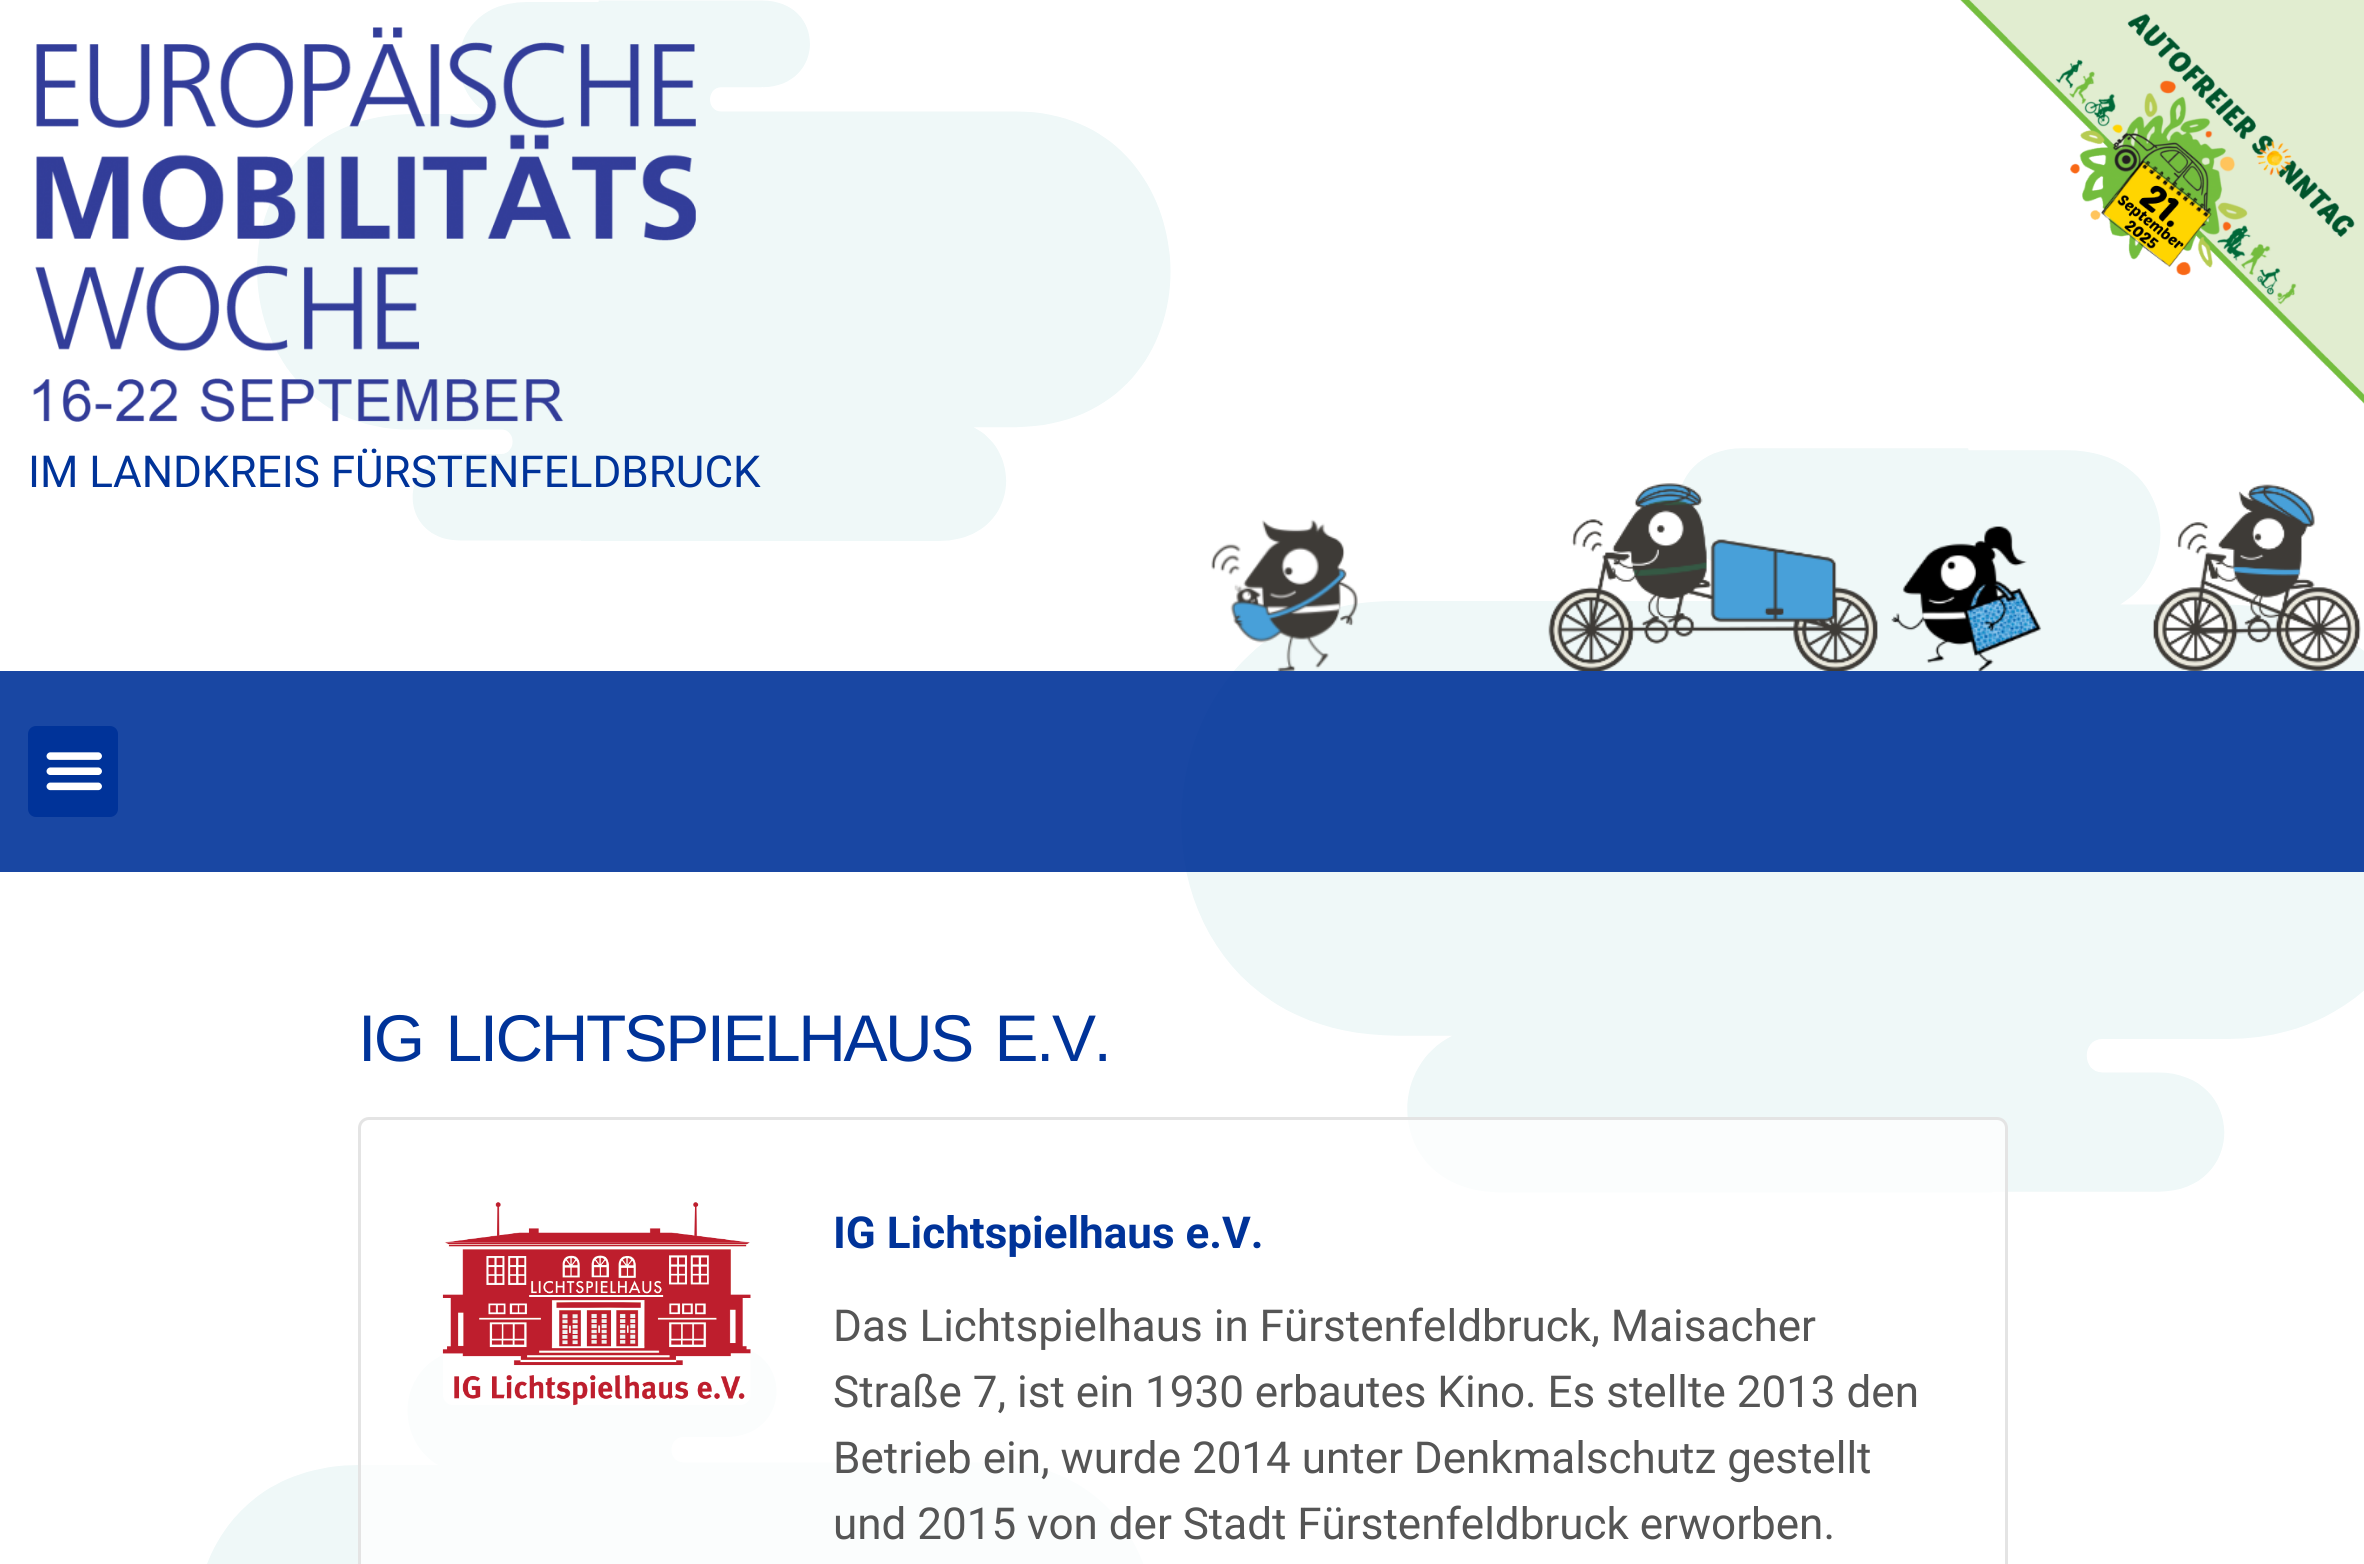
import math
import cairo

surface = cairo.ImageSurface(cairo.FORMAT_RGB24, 2364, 1564)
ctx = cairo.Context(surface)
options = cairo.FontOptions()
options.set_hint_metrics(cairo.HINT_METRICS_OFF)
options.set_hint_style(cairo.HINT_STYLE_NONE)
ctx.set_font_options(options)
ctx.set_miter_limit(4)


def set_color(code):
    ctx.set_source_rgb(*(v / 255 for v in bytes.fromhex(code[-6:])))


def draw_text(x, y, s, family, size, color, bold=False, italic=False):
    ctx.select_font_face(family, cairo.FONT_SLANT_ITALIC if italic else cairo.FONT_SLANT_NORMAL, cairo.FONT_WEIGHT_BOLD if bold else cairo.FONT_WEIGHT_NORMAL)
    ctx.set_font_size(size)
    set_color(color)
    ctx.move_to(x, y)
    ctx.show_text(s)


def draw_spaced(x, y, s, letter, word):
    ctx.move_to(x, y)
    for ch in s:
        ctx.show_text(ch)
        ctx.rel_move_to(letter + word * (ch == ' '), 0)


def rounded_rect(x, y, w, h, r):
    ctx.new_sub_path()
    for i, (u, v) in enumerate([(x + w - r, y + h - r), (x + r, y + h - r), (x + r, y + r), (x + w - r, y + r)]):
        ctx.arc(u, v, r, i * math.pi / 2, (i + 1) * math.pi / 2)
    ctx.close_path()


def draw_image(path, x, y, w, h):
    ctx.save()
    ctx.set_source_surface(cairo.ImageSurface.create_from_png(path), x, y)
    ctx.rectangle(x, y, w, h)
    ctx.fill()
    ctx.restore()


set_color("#ffffff")
ctx.paint()
draw_image("assets/img1.png", 207, 0, 2157, 1564)
draw_image("assets/img2.png", 1960, 0, 404, 404)
draw_image("assets/img3.png", 1211, 483, 1150, 188)
draw_image("assets/img4.png", 33, 27, 663, 395)
draw_text(28, 487, "IM LANDKREIS FÜRSTENFELDBRUCK", "Roboto", 44, "#003399")
ctx.set_source_rgba(0, 0.2, 0.6, 0.9)
ctx.rectangle(0, 671, 2364, 201)
ctx.fill()
set_color("#003399")
rounded_rect(28, 726, 90, 91, 8)
ctx.fill()
draw_image("assets/img5.png", 46, 752, 56, 39)
ctx.select_font_face("Liberation Sans")
ctx.set_font_size(66)
draw_spaced(358, 1061, "IG LICHTSPIELHAUS E.V.", -2.5, 7)
ctx.set_source_rgba(1, 1, 1, 0.75)
rounded_rect(359.5, 1118.5, 1647, 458, 9.5)
ctx.fill_preserve()
set_color("#e4e4e4")
ctx.set_line_width(3)
ctx.stroke()
draw_image("assets/img6.png", 442, 1202, 309, 204)
draw_text(833, 1248, "IG Lichtspielhaus e.V.", "Roboto", 44, "#003399", bold=True)
draw_text(833, 1341, "Das Lichtspielhaus in Fürstenfeldbruck, Maisacher", "Roboto", 44, "#555555")
draw_text(833, 1407, "Straße 7, ist ein 1930 erbautes Kino. Es stellte 2013 den", "Roboto", 44, "#555555")
draw_text(833, 1473, "Betrieb ein, wurde 2014 unter Denkmalschutz gestellt", "Roboto", 44, "#555555")
draw_text(833, 1539, "und 2015 von der Stadt Fürstenfeldbruck erworben.", "Roboto", 44, "#555555")
surface.write_to_png("output.png")
